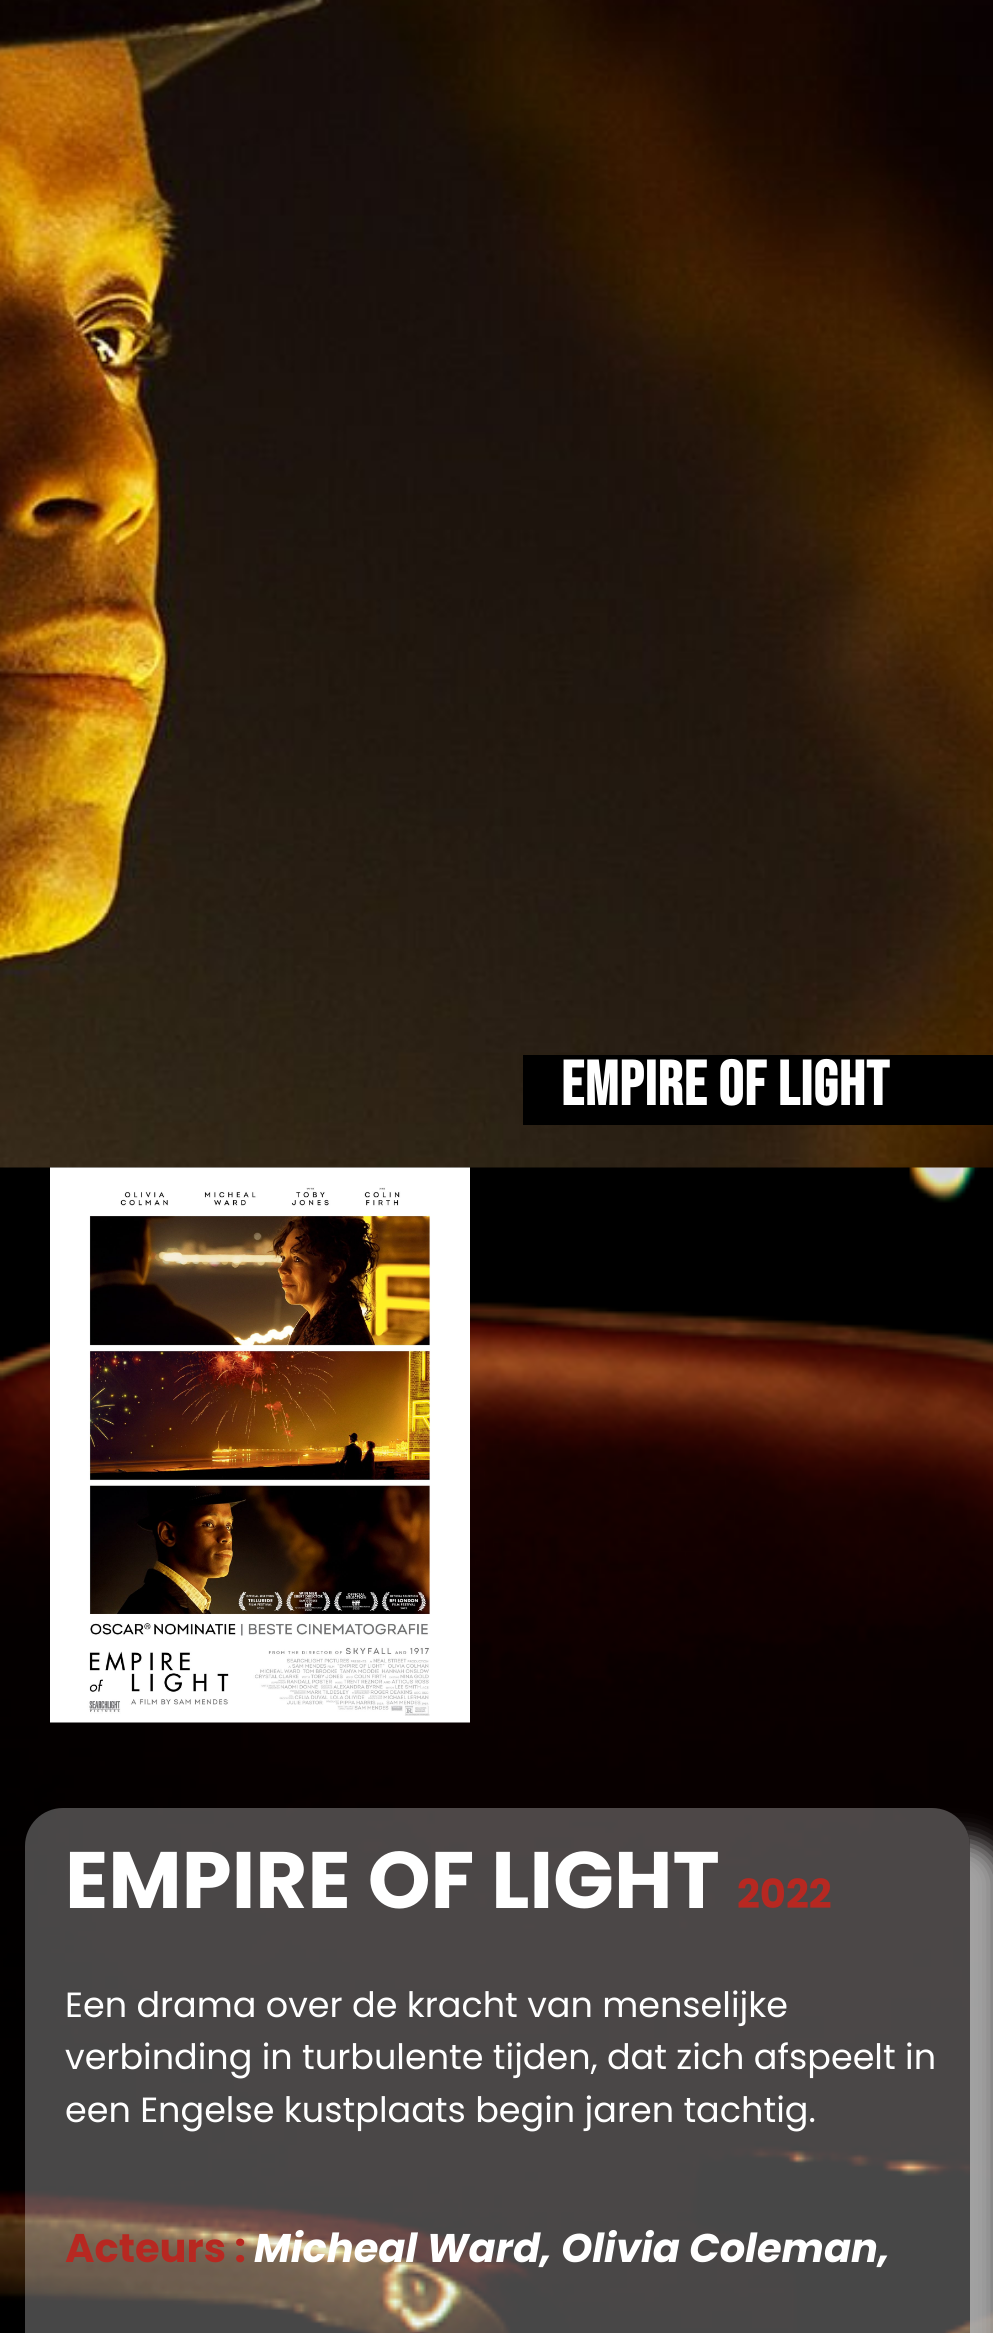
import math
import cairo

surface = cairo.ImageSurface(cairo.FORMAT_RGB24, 993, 2333)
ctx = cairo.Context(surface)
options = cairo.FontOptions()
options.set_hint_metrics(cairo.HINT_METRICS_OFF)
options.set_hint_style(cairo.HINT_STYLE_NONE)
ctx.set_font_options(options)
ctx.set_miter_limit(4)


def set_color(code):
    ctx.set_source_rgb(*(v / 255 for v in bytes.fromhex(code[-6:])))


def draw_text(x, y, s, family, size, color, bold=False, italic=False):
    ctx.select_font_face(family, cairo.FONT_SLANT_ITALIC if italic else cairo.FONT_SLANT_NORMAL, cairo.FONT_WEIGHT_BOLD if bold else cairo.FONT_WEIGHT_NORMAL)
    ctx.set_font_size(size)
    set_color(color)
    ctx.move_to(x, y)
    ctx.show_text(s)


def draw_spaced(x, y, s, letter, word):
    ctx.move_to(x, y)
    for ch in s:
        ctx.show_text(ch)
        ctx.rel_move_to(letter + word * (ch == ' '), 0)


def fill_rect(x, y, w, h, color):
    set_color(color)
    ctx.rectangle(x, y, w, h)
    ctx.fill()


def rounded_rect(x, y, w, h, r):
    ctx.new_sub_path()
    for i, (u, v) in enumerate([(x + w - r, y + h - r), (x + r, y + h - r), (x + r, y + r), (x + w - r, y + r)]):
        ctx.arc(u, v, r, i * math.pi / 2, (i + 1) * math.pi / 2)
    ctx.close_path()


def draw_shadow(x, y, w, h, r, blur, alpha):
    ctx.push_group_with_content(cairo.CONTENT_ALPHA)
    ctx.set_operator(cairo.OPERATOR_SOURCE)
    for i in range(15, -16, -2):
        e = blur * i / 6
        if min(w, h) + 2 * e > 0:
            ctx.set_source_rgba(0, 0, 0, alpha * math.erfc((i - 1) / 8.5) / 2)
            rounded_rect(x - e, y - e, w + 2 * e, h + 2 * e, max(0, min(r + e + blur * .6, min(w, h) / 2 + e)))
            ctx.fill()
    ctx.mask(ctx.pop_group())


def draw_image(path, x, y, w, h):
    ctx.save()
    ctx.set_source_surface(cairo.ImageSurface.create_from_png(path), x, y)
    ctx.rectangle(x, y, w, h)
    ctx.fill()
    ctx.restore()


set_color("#ffffff")
ctx.paint()
draw_image("assets/img1.png", 0, 1167, 993, 1166)
draw_image("assets/img2.png", 0, 0, 993, 1168)
fill_rect(523, 1055, 470, 70, "#000000")
ctx.select_font_face("Bebas Neue", cairo.FONT_SLANT_NORMAL, cairo.FONT_WEIGHT_BOLD)
ctx.set_font_size(62.5)
set_color("#ffffff")
draw_spaced(561, 1105, "EMPIRE OF LIGHT", 1, 0)
draw_image("assets/img3.png", 50, 1167, 420, 556)
ctx.save()
ctx.set_fill_rule(cairo.FILL_RULE_EVEN_ODD)
ctx.new_path()
ctx.move_to(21, 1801)
ctx.line_to(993, 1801)
ctx.line_to(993, 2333)
ctx.line_to(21, 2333)
ctx.close_path()
ctx.move_to(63, 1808)
ctx.line_to(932, 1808)
ctx.curve_to(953, 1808, 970, 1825, 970, 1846)
ctx.line_to(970, 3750)
ctx.curve_to(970, 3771, 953, 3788, 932, 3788)
ctx.line_to(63, 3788)
ctx.curve_to(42, 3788, 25, 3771, 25, 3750)
ctx.line_to(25, 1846)
ctx.curve_to(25, 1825, 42, 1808, 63, 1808)
ctx.close_path()
ctx.clip()
set_color("#b3b3b3")
draw_shadow(60, 1840, 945, 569, 38, 12.5, 0.9)
ctx.restore()
ctx.set_source_rgba(1, 1, 1, 0.28)
rounded_rect(25, 1808, 945, 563, 38)
ctx.fill()
draw_text(65, 1908, "EMPIRE OF LIGHT", "Poppins", 80, "#ffffff", bold=True)
draw_text(737, 1908, "2022", "Poppins", 40, "#b72821", bold=True)
draw_text(65, 2017, "Een drama over de kracht van menselijke", "Poppins", 35, "#ffffff")
draw_text(65, 2069, "verbinding in turbulente tijden, dat zich afspeelt in", "Poppins", 35, "#ffffff")
draw_text(65, 2122, "een Engelse kustplaats begin jaren tachtig.", "Poppins", 35, "#ffffff")
draw_text(65, 2262, "Acteurs :", "Poppins", 40, "#b72821", bold=True)
draw_text(254, 2262, "Micheal Ward, Olivia Coleman,", "Poppins", 40, "#ffffff", bold=True, italic=True)
surface.write_to_png("output.png")
